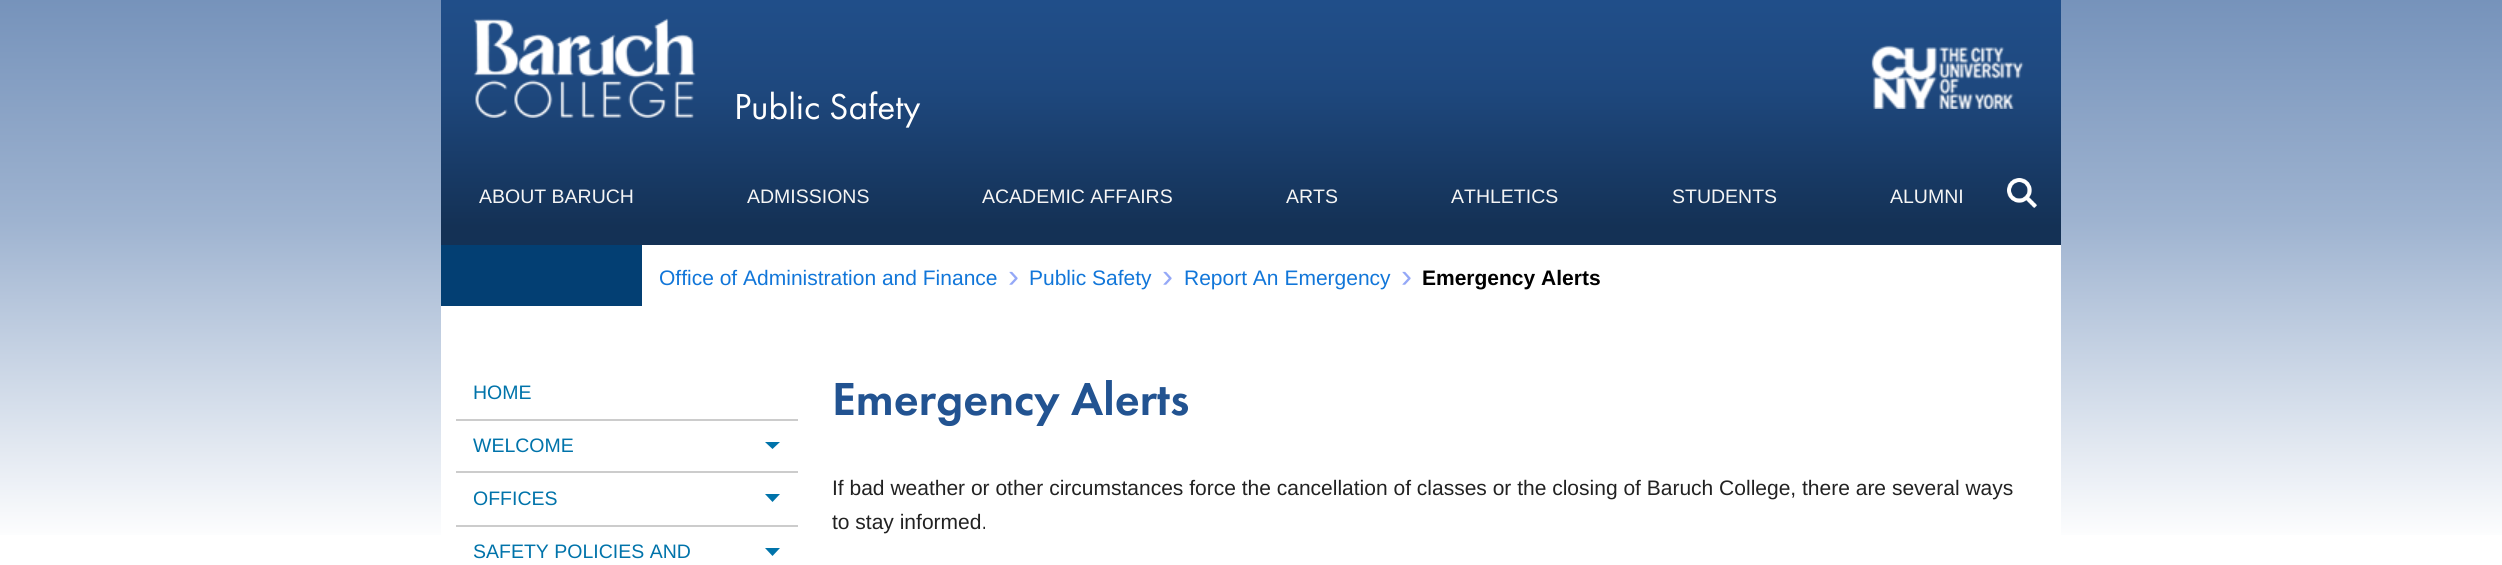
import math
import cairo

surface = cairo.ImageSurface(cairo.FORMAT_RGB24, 2502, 565)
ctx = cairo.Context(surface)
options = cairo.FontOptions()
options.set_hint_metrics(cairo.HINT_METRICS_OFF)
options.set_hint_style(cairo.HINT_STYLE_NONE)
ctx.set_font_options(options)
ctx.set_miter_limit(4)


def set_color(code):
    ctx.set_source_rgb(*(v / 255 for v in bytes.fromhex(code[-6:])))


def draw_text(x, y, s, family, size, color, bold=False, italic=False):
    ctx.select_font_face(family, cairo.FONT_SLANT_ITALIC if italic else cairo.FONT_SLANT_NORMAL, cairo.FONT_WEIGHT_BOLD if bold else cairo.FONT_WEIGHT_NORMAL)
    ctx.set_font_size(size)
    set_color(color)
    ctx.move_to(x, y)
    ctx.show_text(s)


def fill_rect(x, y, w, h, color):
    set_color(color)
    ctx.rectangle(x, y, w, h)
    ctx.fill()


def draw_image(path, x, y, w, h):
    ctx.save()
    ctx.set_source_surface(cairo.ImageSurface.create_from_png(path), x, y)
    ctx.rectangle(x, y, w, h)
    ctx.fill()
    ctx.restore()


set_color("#ffffff")
ctx.paint()
gradient = cairo.LinearGradient(1251, 0, 1251, 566)
gradient.add_color_stop_rgba(0, 0.463, 0.576, 0.733, 1)
gradient.add_color_stop_rgba(0.39, 0.62, 0.702, 0.816, 1)
gradient.add_color_stop_rgba(0.96, 1, 1, 1, 1)
ctx.set_source(gradient)
ctx.rectangle(0, 0, 2502, 535)
ctx.fill()
fill_rect(441, 230, 1620, 15, "#143155")
gradient = cairo.LinearGradient(1251, -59, 1251, 230)
gradient.add_color_stop_rgba(0, 0.133, 0.325, 0.569, 1)
gradient.add_color_stop_rgba(0.51, 0.118, 0.282, 0.494, 1)
gradient.add_color_stop_rgba(0.99, 0.078, 0.192, 0.333, 1)
ctx.set_source(gradient)
ctx.rectangle(441, 0, 1620, 230)
ctx.fill()
draw_image("assets/img1.png", 473, 18, 223, 100)
draw_text(734, 119, "Public Safety", "Futura PT", 37.5, "#ffffff")
draw_image("assets/img2.png", 1871, 45, 153, 64)
draw_text(479, 203, "ABOUT BARUCH", "Liberation Sans", 19.5, "#f5f5f5")
draw_text(747, 203, "ADMISSIONS", "Liberation Sans", 19.5, "#f5f5f5")
draw_text(982, 203, "ACADEMIC AFFAIRS", "Liberation Sans", 19.5, "#f5f5f5")
draw_text(1286, 203, "ARTS", "Liberation Sans", 19.5, "#f5f5f5")
draw_text(1451, 203, "ATHLETICS", "Liberation Sans", 19.5, "#f5f5f5")
draw_text(1672, 203, "STUDENTS", "Liberation Sans", 19.5, "#f5f5f5")
draw_text(1890, 203, "ALUMNI", "Liberation Sans", 19.5, "#f5f5f5")
draw_image("assets/img3.png", 2007, 178, 30, 30)
fill_rect(642, 245, 1419, 61, "#ffffff")
fill_rect(441, 245, 201, 61, "#033f73")
draw_text(659, 285, "Office of Administration and Finance", "Liberation Sans", 21, "#1176d9")
draw_text(1008, 287, "›", "Liberation Sans", 33, "#94a8f7")
draw_text(1029, 285, "Public Safety", "Liberation Sans", 21, "#1176d9")
draw_text(1162, 287, "›", "Liberation Sans", 33, "#94a8f7")
draw_text(1184, 285, "Report An Emergency", "Liberation Sans", 21, "#1176d9")
draw_text(1401, 287, "›", "Liberation Sans", 33, "#94a8f7")
draw_text(1422, 285, "Emergency Alerts", "Liberation Sans", 21, "#000000", bold=True)
fill_rect(441, 306, 1620, 229, "#ffffff")
fill_rect(456, 419, 342, 2, "#cccccc")
draw_text(473, 399, "HOME", "Liberation Sans", 19.5, "#0073aa")
fill_rect(456, 471, 342, 2, "#cccccc")
draw_text(473, 452, "WELCOME", "Liberation Sans", 19.5, "#0073aa")
ctx.new_path()
ctx.move_to(765, 442)
ctx.line_to(780, 442)
ctx.line_to(772.5, 449)
ctx.close_path()
ctx.fill()
fill_rect(456, 525, 342, 2, "#cccccc")
draw_text(473, 505, "OFFICES", "Liberation Sans", 19.5, "#0073aa")
ctx.new_path()
ctx.move_to(765, 494)
ctx.line_to(780, 494)
ctx.line_to(772.5, 502)
ctx.close_path()
ctx.fill()
draw_text(473, 558, "SAFETY POLICIES AND", "Liberation Sans", 19.5, "#0073aa")
ctx.new_path()
ctx.move_to(765, 548)
ctx.line_to(780, 548)
ctx.line_to(772.5, 556)
ctx.close_path()
ctx.fill()
draw_text(832, 415, "Emergency Alerts", "Futura PT Medium", 48, "#225391")
draw_text(832, 495, "If bad weather or other circumstances force the cancellation of classes or the closing of Baruch College, there are several ways", "Liberation Sans", 21, "#222222")
draw_text(832, 529, "to stay informed.", "Liberation Sans", 21, "#222222")
surface.write_to_png("output.png")
